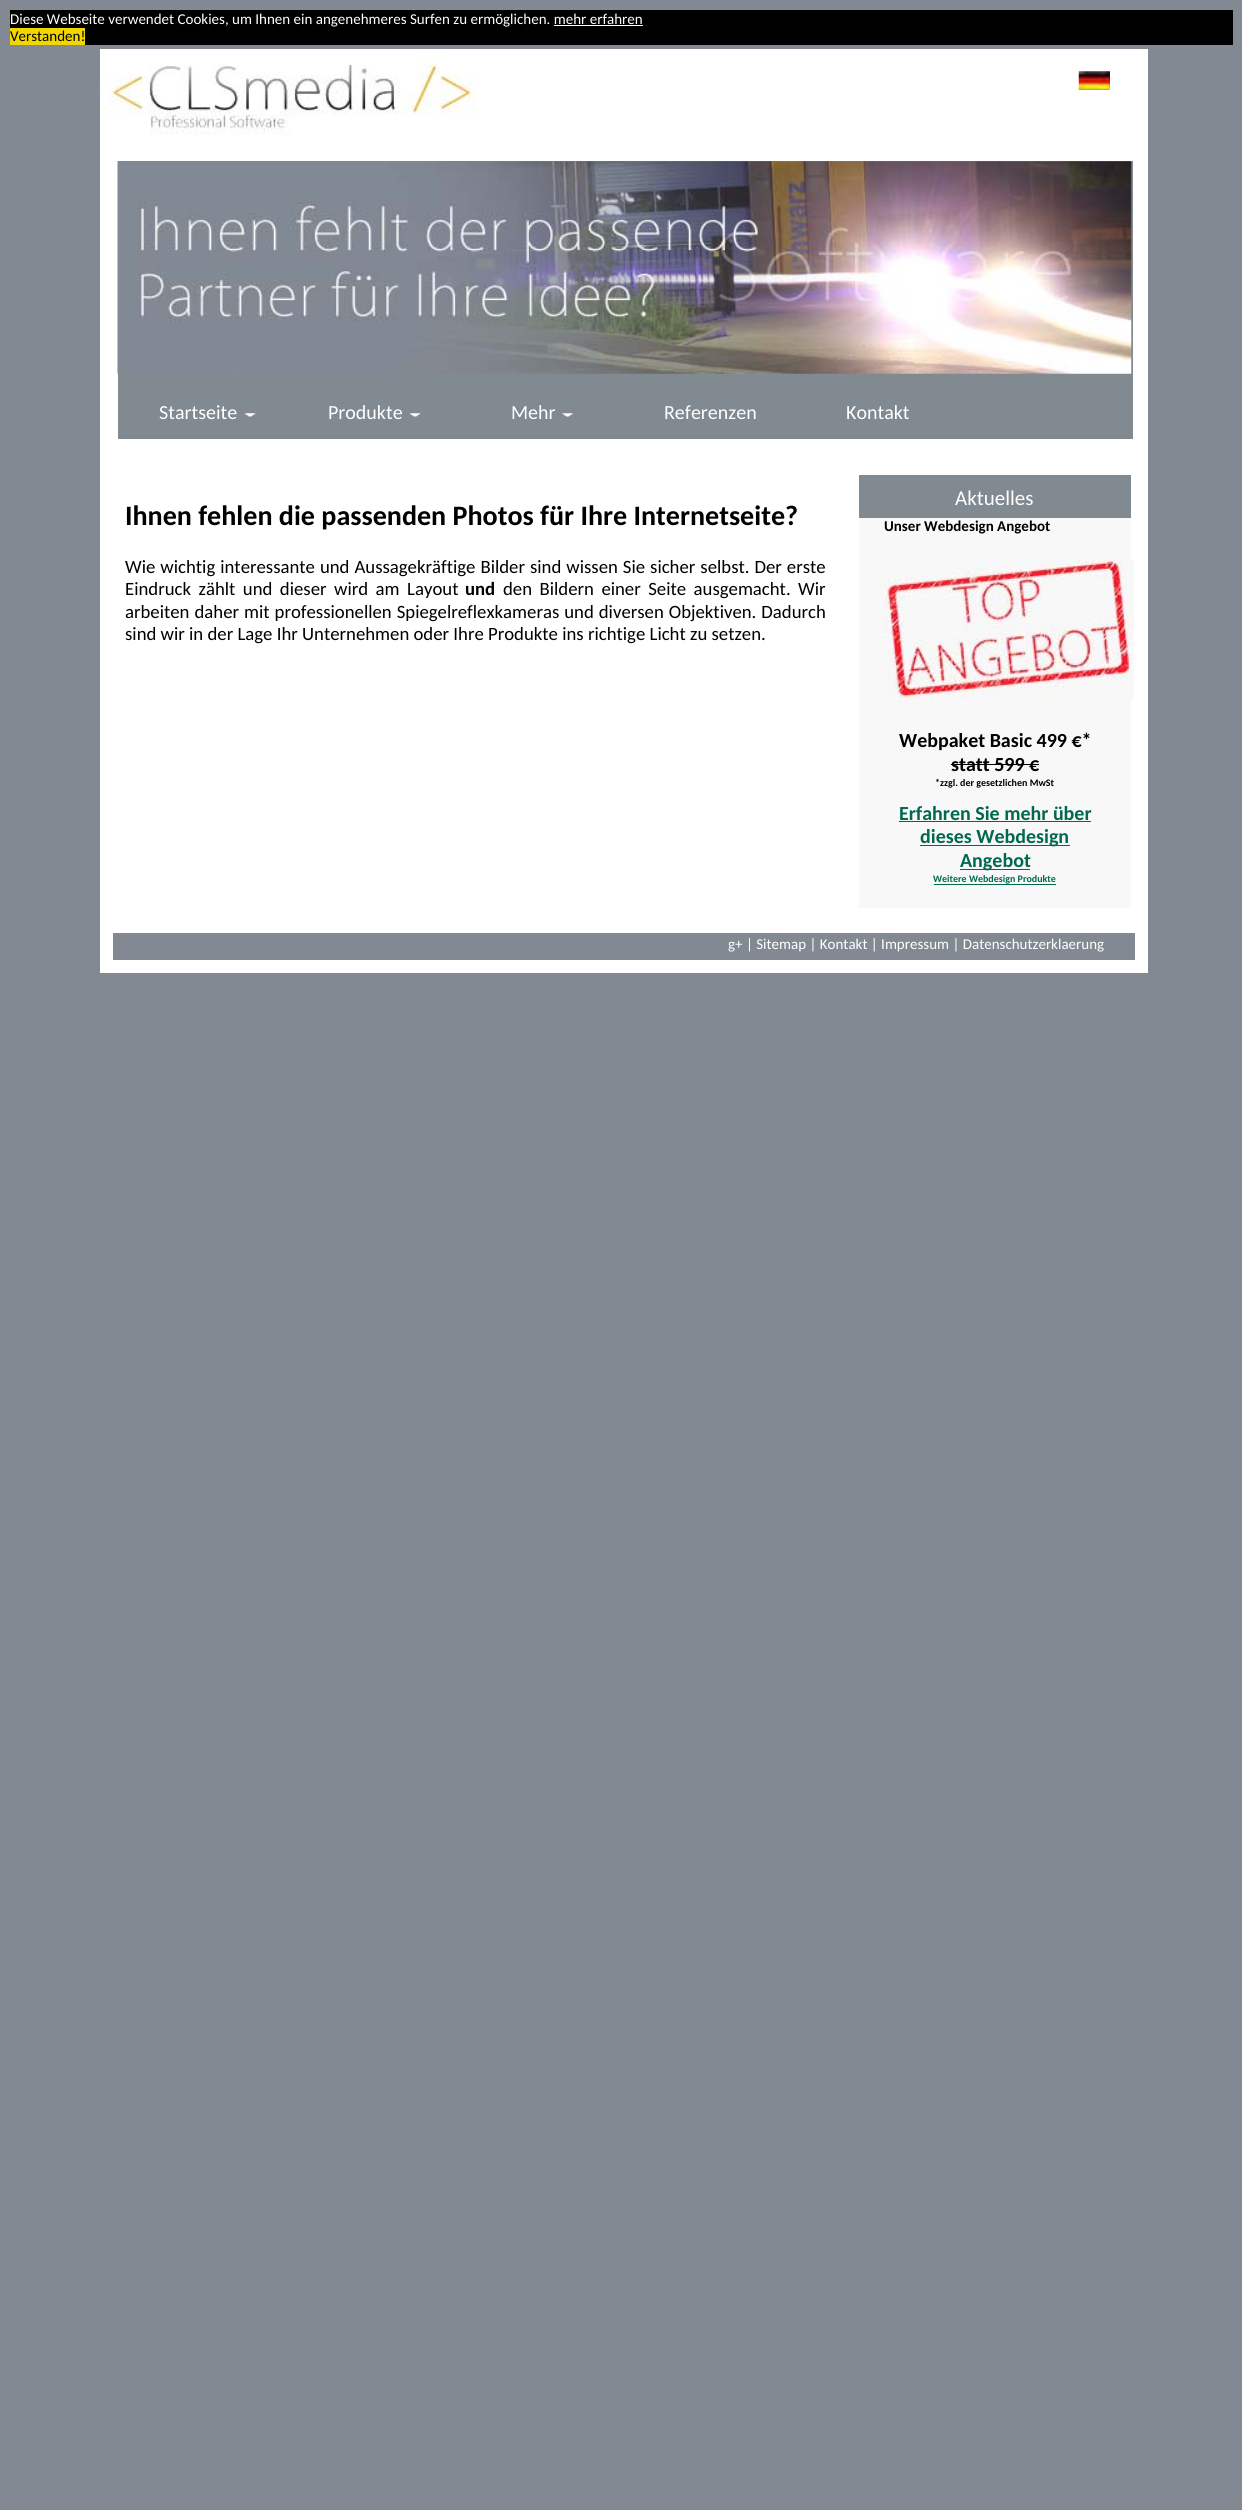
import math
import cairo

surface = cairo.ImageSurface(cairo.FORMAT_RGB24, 1242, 2510)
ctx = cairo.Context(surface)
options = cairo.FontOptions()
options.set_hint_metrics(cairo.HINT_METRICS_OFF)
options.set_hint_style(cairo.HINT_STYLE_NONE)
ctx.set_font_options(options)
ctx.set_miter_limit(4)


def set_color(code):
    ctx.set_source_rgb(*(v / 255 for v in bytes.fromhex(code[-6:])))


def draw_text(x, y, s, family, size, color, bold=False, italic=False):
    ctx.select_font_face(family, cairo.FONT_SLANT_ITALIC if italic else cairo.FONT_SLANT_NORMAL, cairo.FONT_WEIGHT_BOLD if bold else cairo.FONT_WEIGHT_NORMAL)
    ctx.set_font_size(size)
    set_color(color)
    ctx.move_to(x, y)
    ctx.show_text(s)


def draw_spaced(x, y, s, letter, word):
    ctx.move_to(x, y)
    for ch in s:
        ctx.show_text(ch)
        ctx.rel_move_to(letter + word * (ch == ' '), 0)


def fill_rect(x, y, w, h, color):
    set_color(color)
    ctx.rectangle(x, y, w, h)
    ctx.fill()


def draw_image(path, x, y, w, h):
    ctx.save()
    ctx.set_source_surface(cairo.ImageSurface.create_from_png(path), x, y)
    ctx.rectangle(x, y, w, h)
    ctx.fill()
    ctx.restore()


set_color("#828993")
ctx.paint()
fill_rect(10, 10, 1223, 35, "#000000")
draw_text(10, 24, "Diese Webseite verwendet Cookies, um Ihnen ein angenehmeres Surfen zu ermöglichen. mehr erfahren", "Carlito", 15, "#ffffff")
fill_rect(554, 25, 89, 1, "#ffffff")
fill_rect(10, 28, 75, 17, "#f1d600")
draw_text(10, 41, "Verstanden!", "Carlito", 15, "#000002")
fill_rect(100, 49, 1048, 871, "#ffffff")
draw_image("assets/img1.png", 100, 55, 375, 80)
draw_image("assets/img2.png", 1078, 71, 32, 19)
fill_rect(118, 161, 1015, 278, "#818a91")
draw_image("assets/img3.png", 117, 161, 1015, 213)
draw_text(159, 419, "Startseite", "Carlito", 20, "#ffffff")
draw_image("assets/img4.png", 244, 413, 12, 4)
draw_text(328, 419, "Produkte", "Carlito", 20, "#ffffff")
draw_image("assets/img4.png", 409, 413, 12, 4)
draw_text(511, 419, "Mehr", "Carlito", 20, "#ffffff")
draw_image("assets/img5.png", 562, 413, 11, 4)
draw_text(664, 419, "Referenzen", "Carlito", 20, "#ffffff")
draw_text(846, 419, "Kontakt", "Carlito", 20, "#ffffff")
draw_text(125, 525, "Ihnen fehlen die passenden Photos für Ihre Internetseite?", "Carlito", 28.1, "#000002", bold=True)
ctx.select_font_face("Carlito")
ctx.set_font_size(18.75)
draw_spaced(125, 573, "Wie wichtig interessante und Aussagekräftige Bilder sind wissen Sie sicher selbst. Der erste", 0, 0.75)
draw_spaced(125, 595, "Eindruck zählt und dieser wird am Layout", 0, 3.25)
draw_text(465, 595, "und", "Carlito", 18.75, "#000002", bold=True)
ctx.select_font_face("Carlito")
draw_spaced(503, 595, "den Bildern einer Seite ausgemacht. Wir", 0, 3.25)
draw_spaced(125, 618, "arbeiten daher mit professionellen Spiegelreflexkameras und diversen Objektiven. Dadurch", 0, 0.75)
draw_text(125, 640, "sind wir in der Lage Ihr Unternehmen oder Ihre Produkte ins richtige Licht zu setzen.", "Carlito", 18.75, "#000002")
fill_rect(859, 518, 272, 390, "#f8f8f8")
fill_rect(859, 475, 272, 43, "#818a91")
draw_text(955, 505, "Aktuelles", "Carlito", 21, "#ffffff")
draw_text(884, 531, "Unser Webdesign Angebot", "Carlito", 15, "#000002", bold=True)
draw_image("assets/img6.png", 883, 559, 251, 141)
draw_text(899, 747, "Webpaket Basic 499 €*", "Carlito", 20, "#000002", bold=True)
draw_text(951, 771, "statt 599 €", "Carlito", 20, "#000002", bold=True)
fill_rect(951, 764, 88, 1, "#000002")
draw_text(935, 786, "*zzgl. der gesetzlichen MwSt", "Carlito", 10, "#000002", bold=True)
draw_text(899, 820, "Erfahren Sie mehr über", "Carlito", 20, "#00694e", bold=True)
fill_rect(899, 821, 192, 1, "#00694e")
fill_rect(920, 845, 150, 1, "#00694e")
draw_text(920, 843, "dieses Webdesign", "Carlito", 20, "#00694e", bold=True)
fill_rect(960, 869, 70, 1, "#00694e")
draw_text(960, 867, "Angebot", "Carlito", 20, "#00694e", bold=True)
draw_text(933, 882, "Weitere Webdesign Produkte", "Carlito", 10, "#00694e", bold=True)
fill_rect(934, 884, 122, 1, "#00694e")
ctx.rectangle(106.5, 926.5, 1035, 40)
set_color("#ffffff")
ctx.set_line_width(13)
ctx.stroke()
draw_text(728, 949, "g+ | Sitemap | Kontakt | Impressum | Datenschutzerklaerung", "Carlito", 15, "#ffffff")
surface.write_to_png("output.png")
